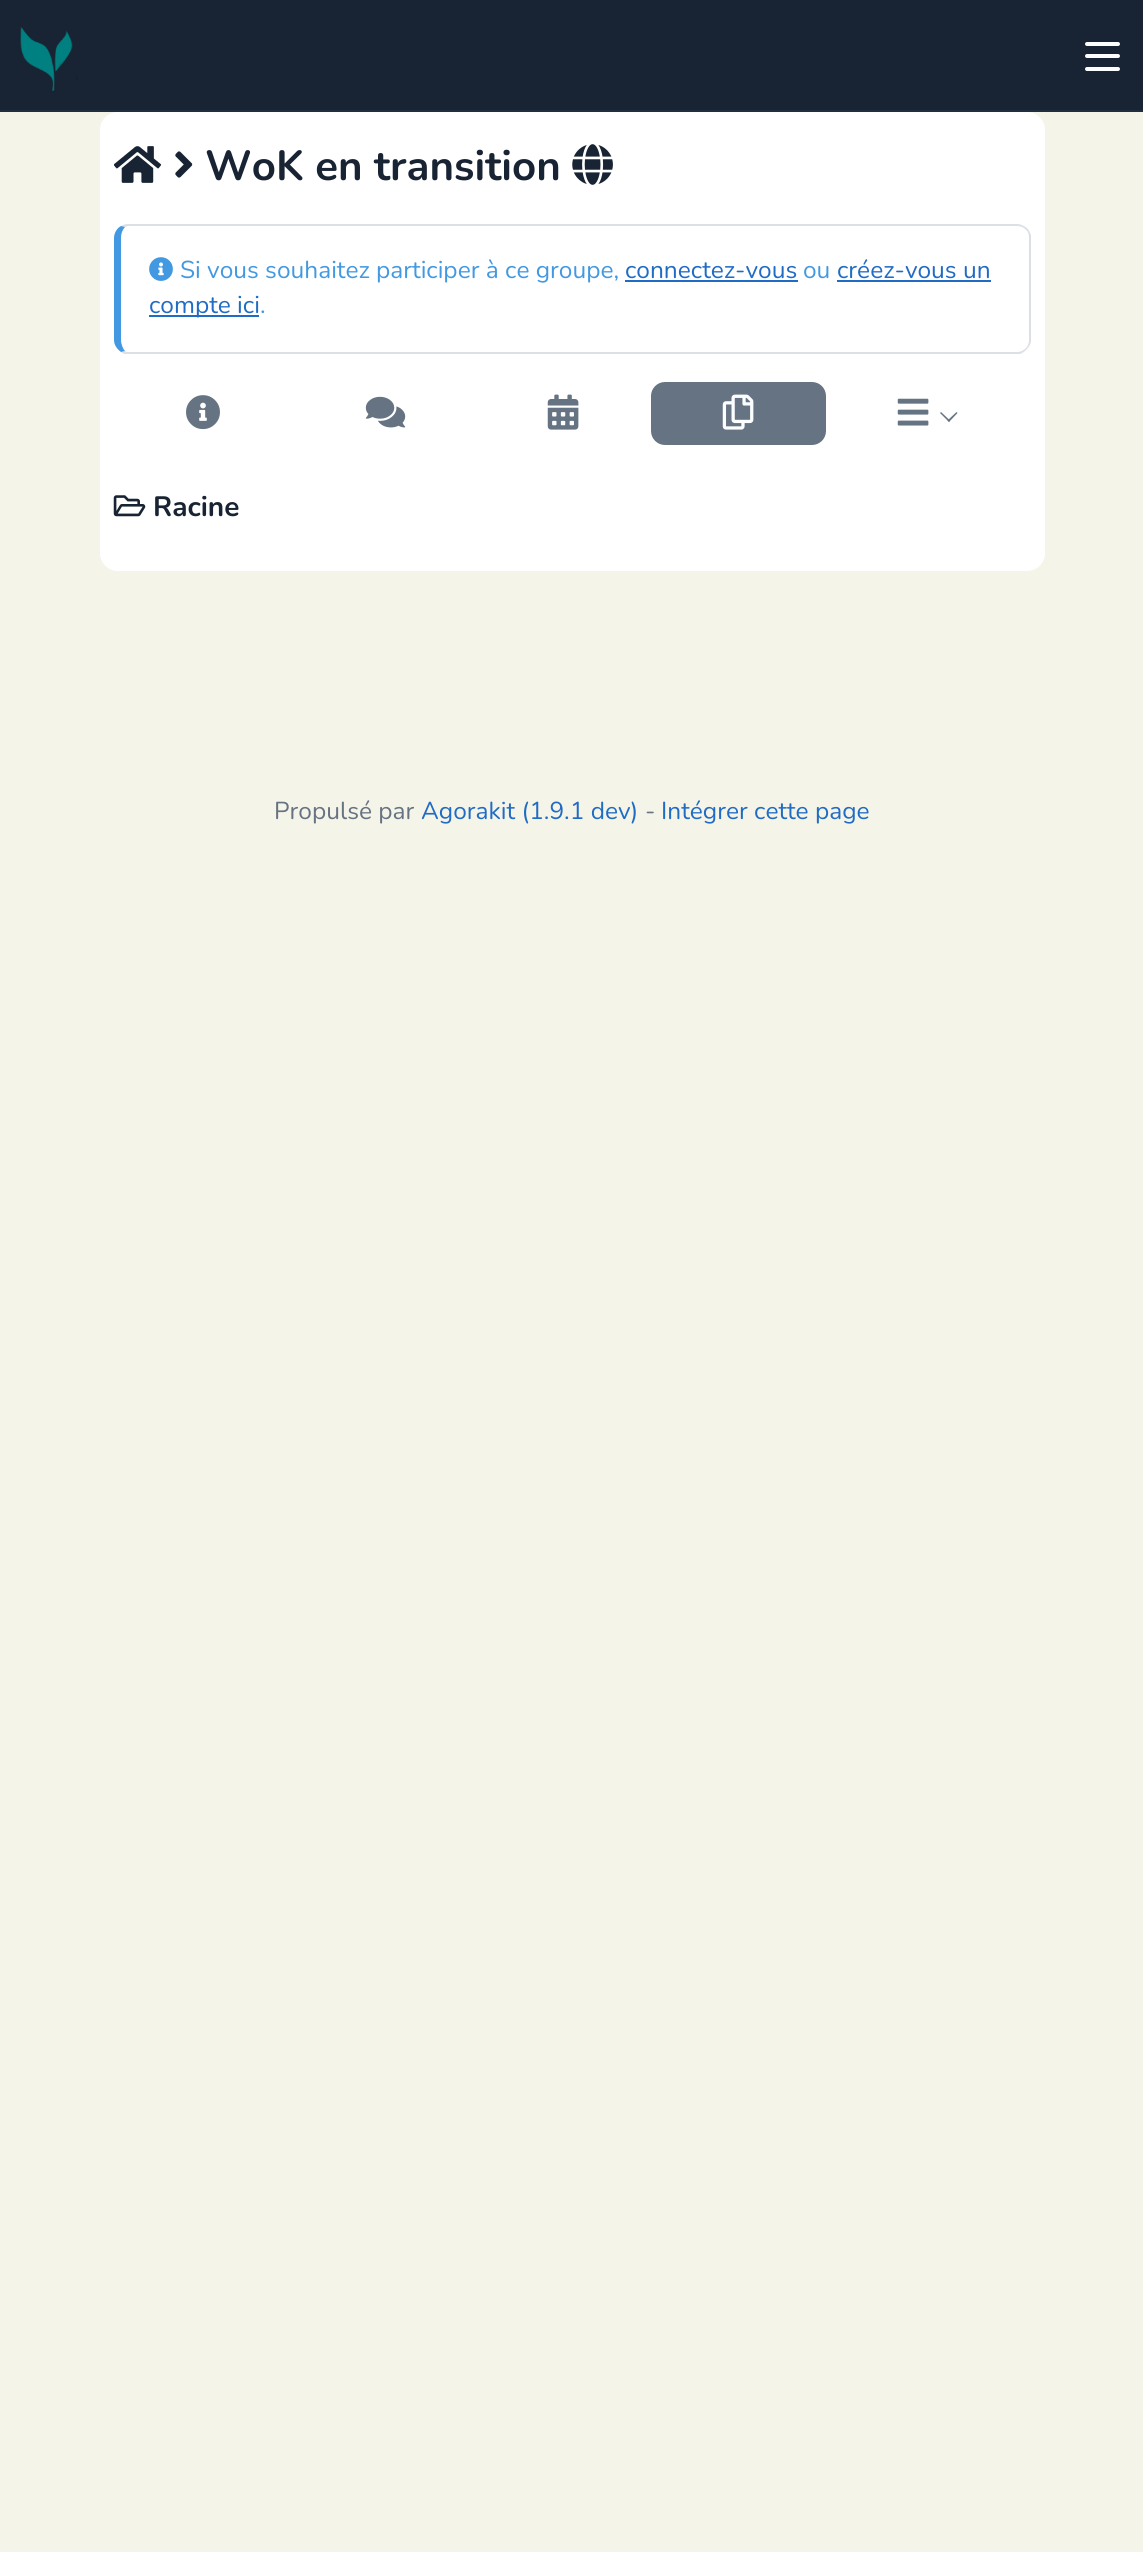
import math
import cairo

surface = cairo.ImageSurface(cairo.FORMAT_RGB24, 1143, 2552)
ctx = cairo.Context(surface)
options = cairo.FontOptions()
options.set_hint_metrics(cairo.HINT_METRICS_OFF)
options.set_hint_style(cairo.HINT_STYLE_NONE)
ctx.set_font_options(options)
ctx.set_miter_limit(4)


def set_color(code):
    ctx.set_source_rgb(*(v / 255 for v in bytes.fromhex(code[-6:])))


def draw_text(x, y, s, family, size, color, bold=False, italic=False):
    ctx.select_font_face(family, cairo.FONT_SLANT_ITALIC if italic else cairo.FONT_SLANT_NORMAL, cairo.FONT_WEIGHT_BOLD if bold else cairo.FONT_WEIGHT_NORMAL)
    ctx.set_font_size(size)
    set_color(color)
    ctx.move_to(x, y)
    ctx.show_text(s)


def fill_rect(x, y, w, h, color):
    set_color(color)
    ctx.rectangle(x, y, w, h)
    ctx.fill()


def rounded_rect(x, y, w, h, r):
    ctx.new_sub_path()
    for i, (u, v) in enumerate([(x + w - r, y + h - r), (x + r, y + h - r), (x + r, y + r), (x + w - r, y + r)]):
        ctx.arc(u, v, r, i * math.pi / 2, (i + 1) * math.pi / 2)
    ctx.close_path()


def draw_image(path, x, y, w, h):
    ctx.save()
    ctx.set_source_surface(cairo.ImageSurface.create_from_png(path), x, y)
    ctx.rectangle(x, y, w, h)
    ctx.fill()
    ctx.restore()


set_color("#f5f4e9")
ctx.paint()
fill_rect(0, 0, 1143, 110, "#182433")
fill_rect(0, 110, 1143, 2, "#1f2e41")
draw_image("assets/img1.png", 20, 27, 58, 64)
set_color("#fcfdfe")
rounded_rect(1085, 54, 35, 4, 2)
ctx.fill()
rounded_rect(1085, 42, 35, 4, 2)
ctx.fill()
rounded_rect(1085, 67, 35, 4, 2)
ctx.fill()
set_color("#ffffff")
rounded_rect(100, 112, 945, 459, 18)
ctx.fill()
draw_image("assets/img2.png", 114, 146, 48, 37)
draw_image("assets/img3.png", 175, 151, 18, 27)
draw_text(205, 180, "WoK en transition", "Nunito", 42, "#182433", bold=True)
draw_image("assets/img4.png", 572, 144, 41, 41)
set_color("#dce0e5")
ctx.new_path()
ctx.move_to(128, 224)
ctx.curve_to(125, 224, 123, 225, 121, 226)
ctx.line_to(125, 227)
ctx.line_to(128, 226)
ctx.line_to(1017, 226)
ctx.curve_to(1020, 226, 1023, 227, 1025, 229)
ctx.line_to(1027, 228)
ctx.curve_to(1024, 226, 1021, 224, 1017, 224)
ctx.close_path()
ctx.fill()
ctx.set_source_rgba(0.016, 0.125, 0.271, 0.14)
ctx.new_path()
ctx.move_to(1031, 342)
ctx.curve_to(1030, 345, 1029, 347, 1027, 349)
ctx.line_to(1026, 348)
ctx.curve_to(1028, 346, 1029, 343, 1029, 340)
ctx.line_to(1029, 238)
ctx.curve_to(1029, 234, 1028, 231, 1025, 229)
ctx.line_to(1027, 228)
ctx.curve_to(1029, 230, 1030, 233, 1031, 235)
ctx.close_path()
ctx.fill()
ctx.new_path()
ctx.move_to(124, 354)
ctx.line_to(121, 352)
ctx.line_to(125, 351)
ctx.curve_to(126, 352, 127, 352, 128, 352)
ctx.line_to(1017, 352)
ctx.curve_to(1020, 352, 1023, 351, 1026, 348)
ctx.line_to(1027, 349)
ctx.curve_to(1025, 351, 1023, 353, 1020, 354)
ctx.close_path()
ctx.fill()
set_color("#4299e1")
ctx.new_path()
ctx.move_to(121, 226)
ctx.curve_to(117, 228, 114, 233, 114, 238)
ctx.line_to(114, 340)
ctx.curve_to(114, 345, 117, 349, 121, 352)
ctx.line_to(125, 351)
ctx.curve_to(123, 349, 121, 344, 121, 340)
ctx.line_to(121, 238)
ctx.curve_to(121, 233, 123, 229, 125, 227)
ctx.close_path()
ctx.fill()
draw_image("assets/img5.png", 149, 257, 24, 24)
draw_text(180, 278, "Si vous souhaitez participer à ce groupe,", "Nunito", 24.5, "#4299e1")
draw_text(625, 278, "connectez-vous", "Nunito", 24.5, "#206bc4")
fill_rect(625, 280, 173, 2, "#206bc4")
draw_text(803, 278, "ou", "Nunito", 24.5, "#4299e1")
draw_text(837, 278, "créez-vous un", "Nunito", 24.5, "#206bc4")
fill_rect(837, 280, 154, 2, "#206bc4")
fill_rect(149, 315, 110, 2, "#206bc4")
draw_text(149, 313, "compte ici", "Nunito", 24.5, "#206bc4")
draw_text(260, 313, ".", "Nunito", 24.5, "#4299e1")
draw_image("assets/img6.png", 186, 395, 34, 35)
draw_image("assets/img7.png", 365, 396, 41, 32)
draw_image("assets/img8.png", 547, 394, 32, 36)
set_color("#667382")
rounded_rect(651, 382, 175, 63, 14)
ctx.fill()
draw_image("assets/img9.png", 722, 394, 32, 36)
draw_image("assets/img10.png", 897, 398, 32, 28)
ctx.new_path()
ctx.move_to(947.5, 420.5)
ctx.line_to(956.5, 412)
ctx.line_to(957.5, 413)
ctx.line_to(949, 422)
ctx.close_path()
ctx.fill()
ctx.new_path()
ctx.move_to(940, 413)
ctx.line_to(941, 412)
ctx.line_to(950, 420.5)
ctx.line_to(949, 422)
ctx.close_path()
ctx.fill()
draw_image("assets/img11.png", 113, 495, 33, 22)
draw_text(153, 516, "Racine", "Nunito", 28, "#182433", bold=True)
draw_text(274, 819, "Propulsé par", "Nunito", 24.5, "#667382")
draw_text(421, 819, "Agorakit (1.9.1 dev)", "Nunito", 24.5, "#206bc4")
draw_text(645, 819, "-", "Nunito", 24.5, "#667382")
draw_text(661, 819, "Intégrer cette page", "Nunito", 24.5, "#206bc4")
surface.write_to_png("output.png")
